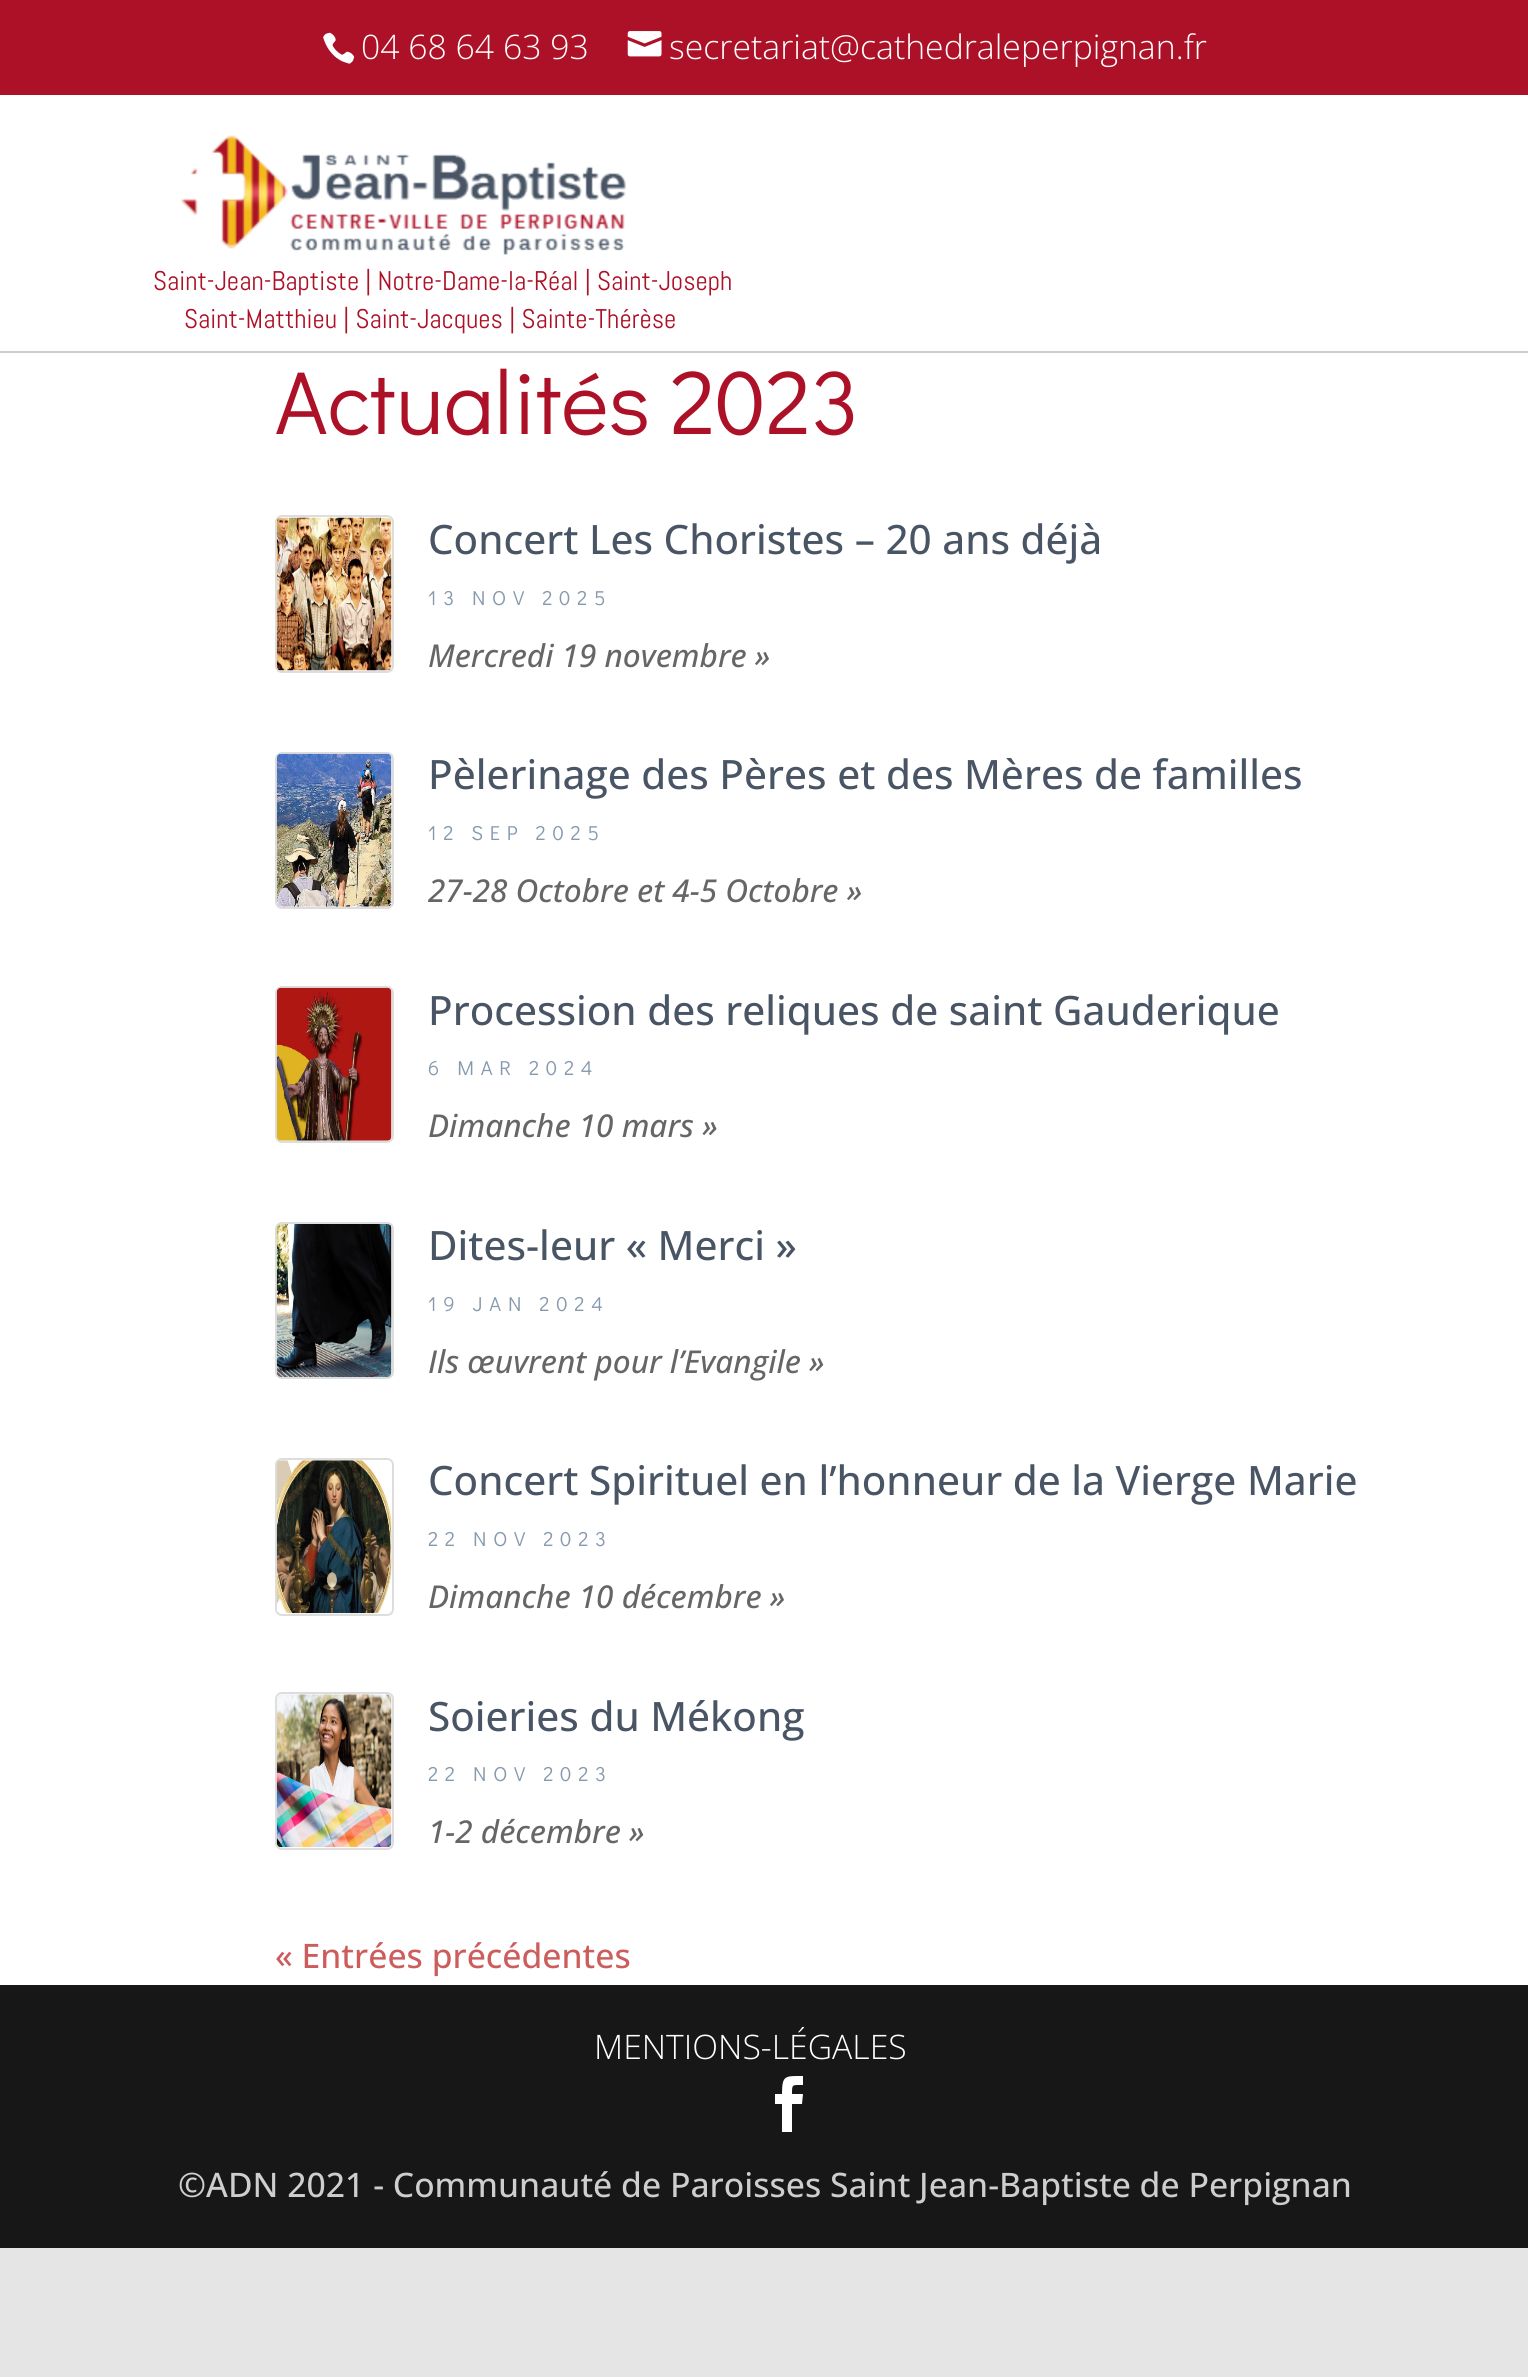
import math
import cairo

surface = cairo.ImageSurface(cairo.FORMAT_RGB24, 1528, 2377)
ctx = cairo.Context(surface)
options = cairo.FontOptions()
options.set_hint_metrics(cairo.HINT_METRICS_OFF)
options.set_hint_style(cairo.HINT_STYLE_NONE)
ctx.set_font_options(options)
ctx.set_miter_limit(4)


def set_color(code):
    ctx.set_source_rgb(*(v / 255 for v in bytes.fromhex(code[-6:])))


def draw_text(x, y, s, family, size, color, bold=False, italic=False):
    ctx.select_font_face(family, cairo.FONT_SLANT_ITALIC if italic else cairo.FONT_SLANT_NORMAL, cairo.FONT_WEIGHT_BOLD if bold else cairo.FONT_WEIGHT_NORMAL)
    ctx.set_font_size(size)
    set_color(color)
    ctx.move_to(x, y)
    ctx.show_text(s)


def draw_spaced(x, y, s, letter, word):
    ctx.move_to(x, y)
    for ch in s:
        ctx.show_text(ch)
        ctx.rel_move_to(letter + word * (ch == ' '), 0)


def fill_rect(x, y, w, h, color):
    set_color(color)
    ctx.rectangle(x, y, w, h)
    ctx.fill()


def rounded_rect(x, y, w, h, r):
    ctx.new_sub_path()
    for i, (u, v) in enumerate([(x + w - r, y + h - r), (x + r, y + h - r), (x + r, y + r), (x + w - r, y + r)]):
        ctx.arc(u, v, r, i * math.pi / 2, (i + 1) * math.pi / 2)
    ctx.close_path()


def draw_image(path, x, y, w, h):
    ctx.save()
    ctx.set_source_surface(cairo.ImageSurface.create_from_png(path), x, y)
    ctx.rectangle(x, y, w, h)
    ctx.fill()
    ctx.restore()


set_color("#e5e5e5")
ctx.paint()
fill_rect(0, 0, 1528, 95, "#ad1128")
draw_image("assets/img1.png", 323, 32, 32, 32)
draw_text(361, 59, "04 68 64 63 93", "Open Sans Light", 33.75, "#ffffff")
draw_image("assets/img2.png", 627, 31, 35, 26)
draw_text(669, 59, "secretariat@cathedraleperpignan.fr", "Open Sans Light", 33.75, "#ffffff")
fill_rect(0, 95, 1528, 256, "#ffffff")
fill_rect(0, 351, 1528, 2, "#cccccc")
draw_image("assets/img3.png", 180, 135, 446, 120)
draw_text(153, 290, "Saint-Jean-Baptiste | Notre-Dame-la-Réal | Saint-Joseph", "Abel", 27, "#ad1128")
draw_text(184, 328, "Saint-Matthieu | Saint-Jacques | Sainte-Thérèse", "Abel", 27, "#ad1128")
fill_rect(0, 353, 1528, 1632, "#ffffff")
draw_text(275, 434, "Actualités 2023", "Didact Gothic", 90, "#ad1128")
rounded_rect(276, 516, 117, 156, 6)
set_color("#dddddd")
ctx.stroke()
draw_image("assets/img4.png", 276, 517, 116, 154)
draw_text(428, 554, "Concert Les Choristes – 20 ans déjà", "Open Sans Medium", 40.5, "#495565")
ctx.select_font_face("Didact Gothic")
ctx.set_font_size(20.25)
set_color("#8699ad")
draw_spaced(428, 605, "13 NOV 2025", 6.75, 0)
draw_text(428, 667, "Mercredi 19 novembre »", "Open Sans Medium", 31.5, "#666666", italic=True)
rounded_rect(276, 753, 117, 155, 6)
set_color("#dddddd")
ctx.stroke()
draw_image("assets/img5.png", 276, 753, 116, 154)
draw_text(428, 789, "Pèlerinage des Pères et des Mères de familles", "Open Sans Medium", 40.5, "#495565")
ctx.select_font_face("Didact Gothic")
ctx.set_font_size(20.25)
set_color("#8699ad")
draw_spaced(428, 840, "12 SEP 2025", 6.75, 0)
draw_text(428, 902, "27-28 Octobre et 4-5 Octobre »", "Open Sans Medium", 31.5, "#666666", italic=True)
rounded_rect(276, 987, 117, 155, 6)
set_color("#dddddd")
ctx.stroke()
draw_image("assets/img6.png", 276, 987, 116, 154)
draw_text(428, 1025, "Procession des reliques de saint Gauderique", "Open Sans Medium", 40.5, "#495565")
ctx.select_font_face("Didact Gothic")
ctx.set_font_size(20.25)
set_color("#8699ad")
draw_spaced(428, 1075, "6 MAR 2024", 6.75, 0)
draw_text(428, 1137, "Dimanche 10 mars »", "Open Sans Medium", 31.5, "#666666", italic=True)
rounded_rect(276, 1223, 117, 155, 6)
set_color("#dddddd")
ctx.stroke()
draw_image("assets/img7.png", 276, 1224, 116, 153)
draw_text(428, 1260, "Dites-leur « Merci »", "Open Sans Medium", 40.5, "#495565")
ctx.select_font_face("Didact Gothic")
ctx.set_font_size(20.25)
set_color("#8699ad")
draw_spaced(428, 1311, "19 JAN 2024", 6.75, 0)
draw_text(428, 1373, "Ils œuvrent pour l’Evangile »", "Open Sans Medium", 31.5, "#666666", italic=True)
rounded_rect(276, 1459, 117, 156, 6)
set_color("#dddddd")
ctx.stroke()
draw_image("assets/img8.png", 276, 1460, 116, 154)
draw_text(428, 1495, "Concert Spirituel en l’honneur de la Vierge Marie", "Open Sans Medium", 40.5, "#495565")
ctx.select_font_face("Didact Gothic")
ctx.set_font_size(20.25)
set_color("#8699ad")
draw_spaced(428, 1546, "22 NOV 2023", 6.75, 0)
draw_text(428, 1608, "Dimanche 10 décembre »", "Open Sans Medium", 31.5, "#666666", italic=True)
rounded_rect(276, 1693, 117, 156, 6)
set_color("#dddddd")
ctx.stroke()
draw_image("assets/img9.png", 276, 1694, 116, 154)
draw_text(428, 1731, "Soieries du Mékong", "Open Sans Medium", 40.5, "#495565")
ctx.select_font_face("Didact Gothic")
ctx.set_font_size(20.25)
set_color("#8699ad")
draw_spaced(428, 1781, "22 NOV 2023", 6.75, 0)
draw_text(428, 1843, "1-2 décembre »", "Open Sans Medium", 31.5, "#666666", italic=True)
draw_text(275, 1968, "« Entrées précédentes", "Open Sans Medium", 33.75, "#cd5c5c")
fill_rect(0, 1985, 1528, 263, "#171717")
draw_text(594, 2059, "MENTIONS-LÉGALES", "Open Sans Light", 33.75, "#ffffff")
ctx.new_path()
ctx.move_to(782, 2132)
ctx.line_to(792, 2132)
ctx.line_to(792, 2104)
ctx.line_to(802, 2104)
ctx.line_to(803, 2094)
ctx.line_to(792, 2094)
ctx.curve_to(792, 2084, 792, 2085, 803, 2085)
ctx.line_to(803, 2076)
ctx.curve_to(785, 2076, 782, 2075, 782, 2094)
ctx.line_to(775, 2094)
ctx.line_to(775, 2104)
ctx.line_to(782, 2104)
ctx.close_path()
ctx.fill()
draw_text(178, 2197, "©ADN 2021 - Communauté de Paroisses Saint Jean-Baptiste de Perpignan", "Open Sans Medium", 33.75, "#cecece")
surface.write_to_png("output.png")
